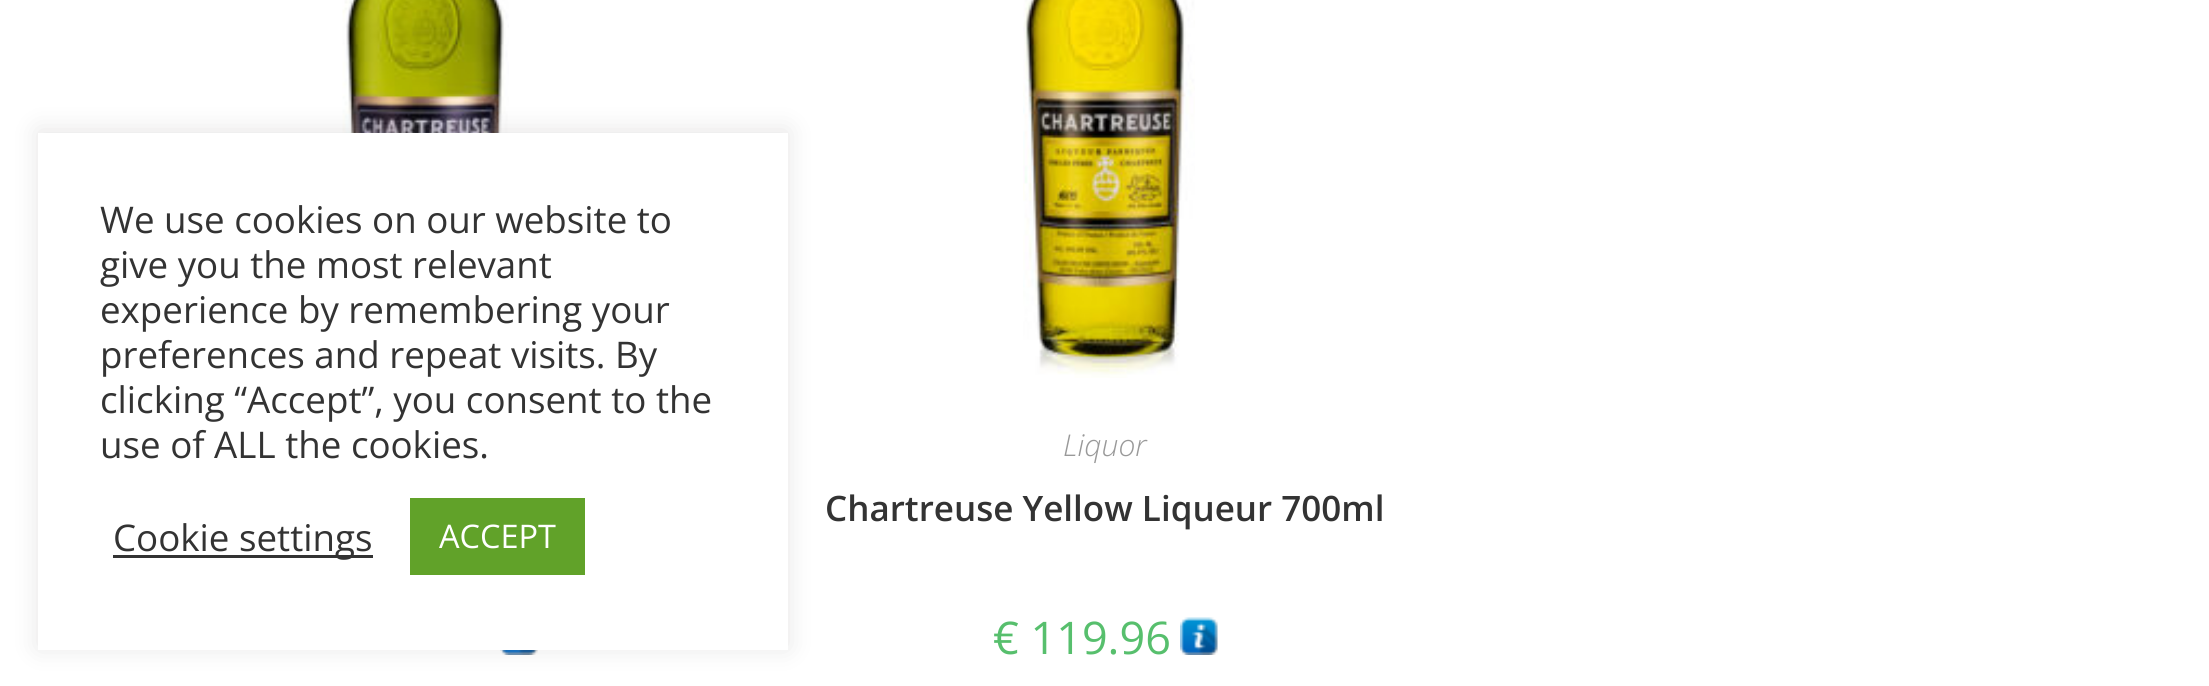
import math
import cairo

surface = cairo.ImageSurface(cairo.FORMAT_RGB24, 2209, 686)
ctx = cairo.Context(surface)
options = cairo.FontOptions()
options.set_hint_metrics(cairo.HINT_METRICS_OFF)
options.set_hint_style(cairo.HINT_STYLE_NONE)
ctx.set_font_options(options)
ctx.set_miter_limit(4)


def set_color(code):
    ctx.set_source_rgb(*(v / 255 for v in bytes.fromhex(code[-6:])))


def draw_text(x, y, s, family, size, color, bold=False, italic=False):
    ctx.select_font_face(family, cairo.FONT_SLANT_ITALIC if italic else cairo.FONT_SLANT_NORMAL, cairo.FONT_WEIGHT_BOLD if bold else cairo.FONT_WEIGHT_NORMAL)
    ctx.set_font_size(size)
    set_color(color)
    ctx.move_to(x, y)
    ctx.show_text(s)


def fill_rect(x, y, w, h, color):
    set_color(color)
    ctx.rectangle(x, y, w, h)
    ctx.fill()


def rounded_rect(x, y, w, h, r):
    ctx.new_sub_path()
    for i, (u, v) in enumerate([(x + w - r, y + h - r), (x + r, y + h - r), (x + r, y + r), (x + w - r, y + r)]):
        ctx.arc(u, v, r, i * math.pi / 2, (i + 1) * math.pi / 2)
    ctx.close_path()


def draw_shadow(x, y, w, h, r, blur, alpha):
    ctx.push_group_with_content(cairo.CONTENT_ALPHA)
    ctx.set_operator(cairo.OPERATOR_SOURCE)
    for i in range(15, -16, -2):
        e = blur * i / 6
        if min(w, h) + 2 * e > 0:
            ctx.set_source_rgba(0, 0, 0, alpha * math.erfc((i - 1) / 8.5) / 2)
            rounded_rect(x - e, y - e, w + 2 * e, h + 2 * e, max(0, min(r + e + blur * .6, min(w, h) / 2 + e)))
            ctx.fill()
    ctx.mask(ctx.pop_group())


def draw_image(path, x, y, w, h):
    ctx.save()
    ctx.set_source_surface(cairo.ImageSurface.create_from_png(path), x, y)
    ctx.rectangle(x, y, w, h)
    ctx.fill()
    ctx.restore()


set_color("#ffffff")
ctx.paint()
draw_image("assets/img1.png", 342, 0, 167, 133)
draw_image("assets/img2.png", 500, 650, 38, 5)
set_color("#acabab")
draw_shadow(38, 130, 750, 518, 0, 12.5, 0.3)
fill_rect(38, 133, 750, 517, "#ffffff")
draw_text(100, 233, "We use cookies on our website to", "Open Sans", 36.7, "#333333")
draw_text(100, 278, "give you the most relevant", "Open Sans", 36.7, "#333333")
draw_text(100, 323, "experience by remembering your", "Open Sans", 36.7, "#333333")
draw_text(100, 368, "preferences and repeat visits. By", "Open Sans", 36.7, "#333333")
draw_text(100, 413, "clicking “Accept”, you consent to the", "Open Sans", 36.7, "#333333")
draw_text(100, 458, "use of ALL the cookies.", "Open Sans", 36.7, "#333333")
fill_rect(113, 555, 260, 3, "#333333")
draw_text(113, 551, "Cookie settings", "Open Sans", 36.7, "#333333")
fill_rect(410, 498, 175, 77, "#61a229")
draw_text(439, 548, "ACCEPT", "Open Sans", 32.5, "#ffffff")
draw_image("assets/img3.png", 1023, 0, 172, 378)
draw_text(1063, 456, "Liquor", "Open Sans Light", 30, "#999999", italic=True)
draw_text(825, 521, "Chartreuse Yellow Liqueur 700ml", "Open Sans SemiBold", 35, "#333333")
draw_text(993, 654, "€ 119.96", "Open Sans", 45, "#57bf6d")
draw_image("assets/img4.png", 1180, 617, 38, 38)
surface.write_to_png("output.png")
